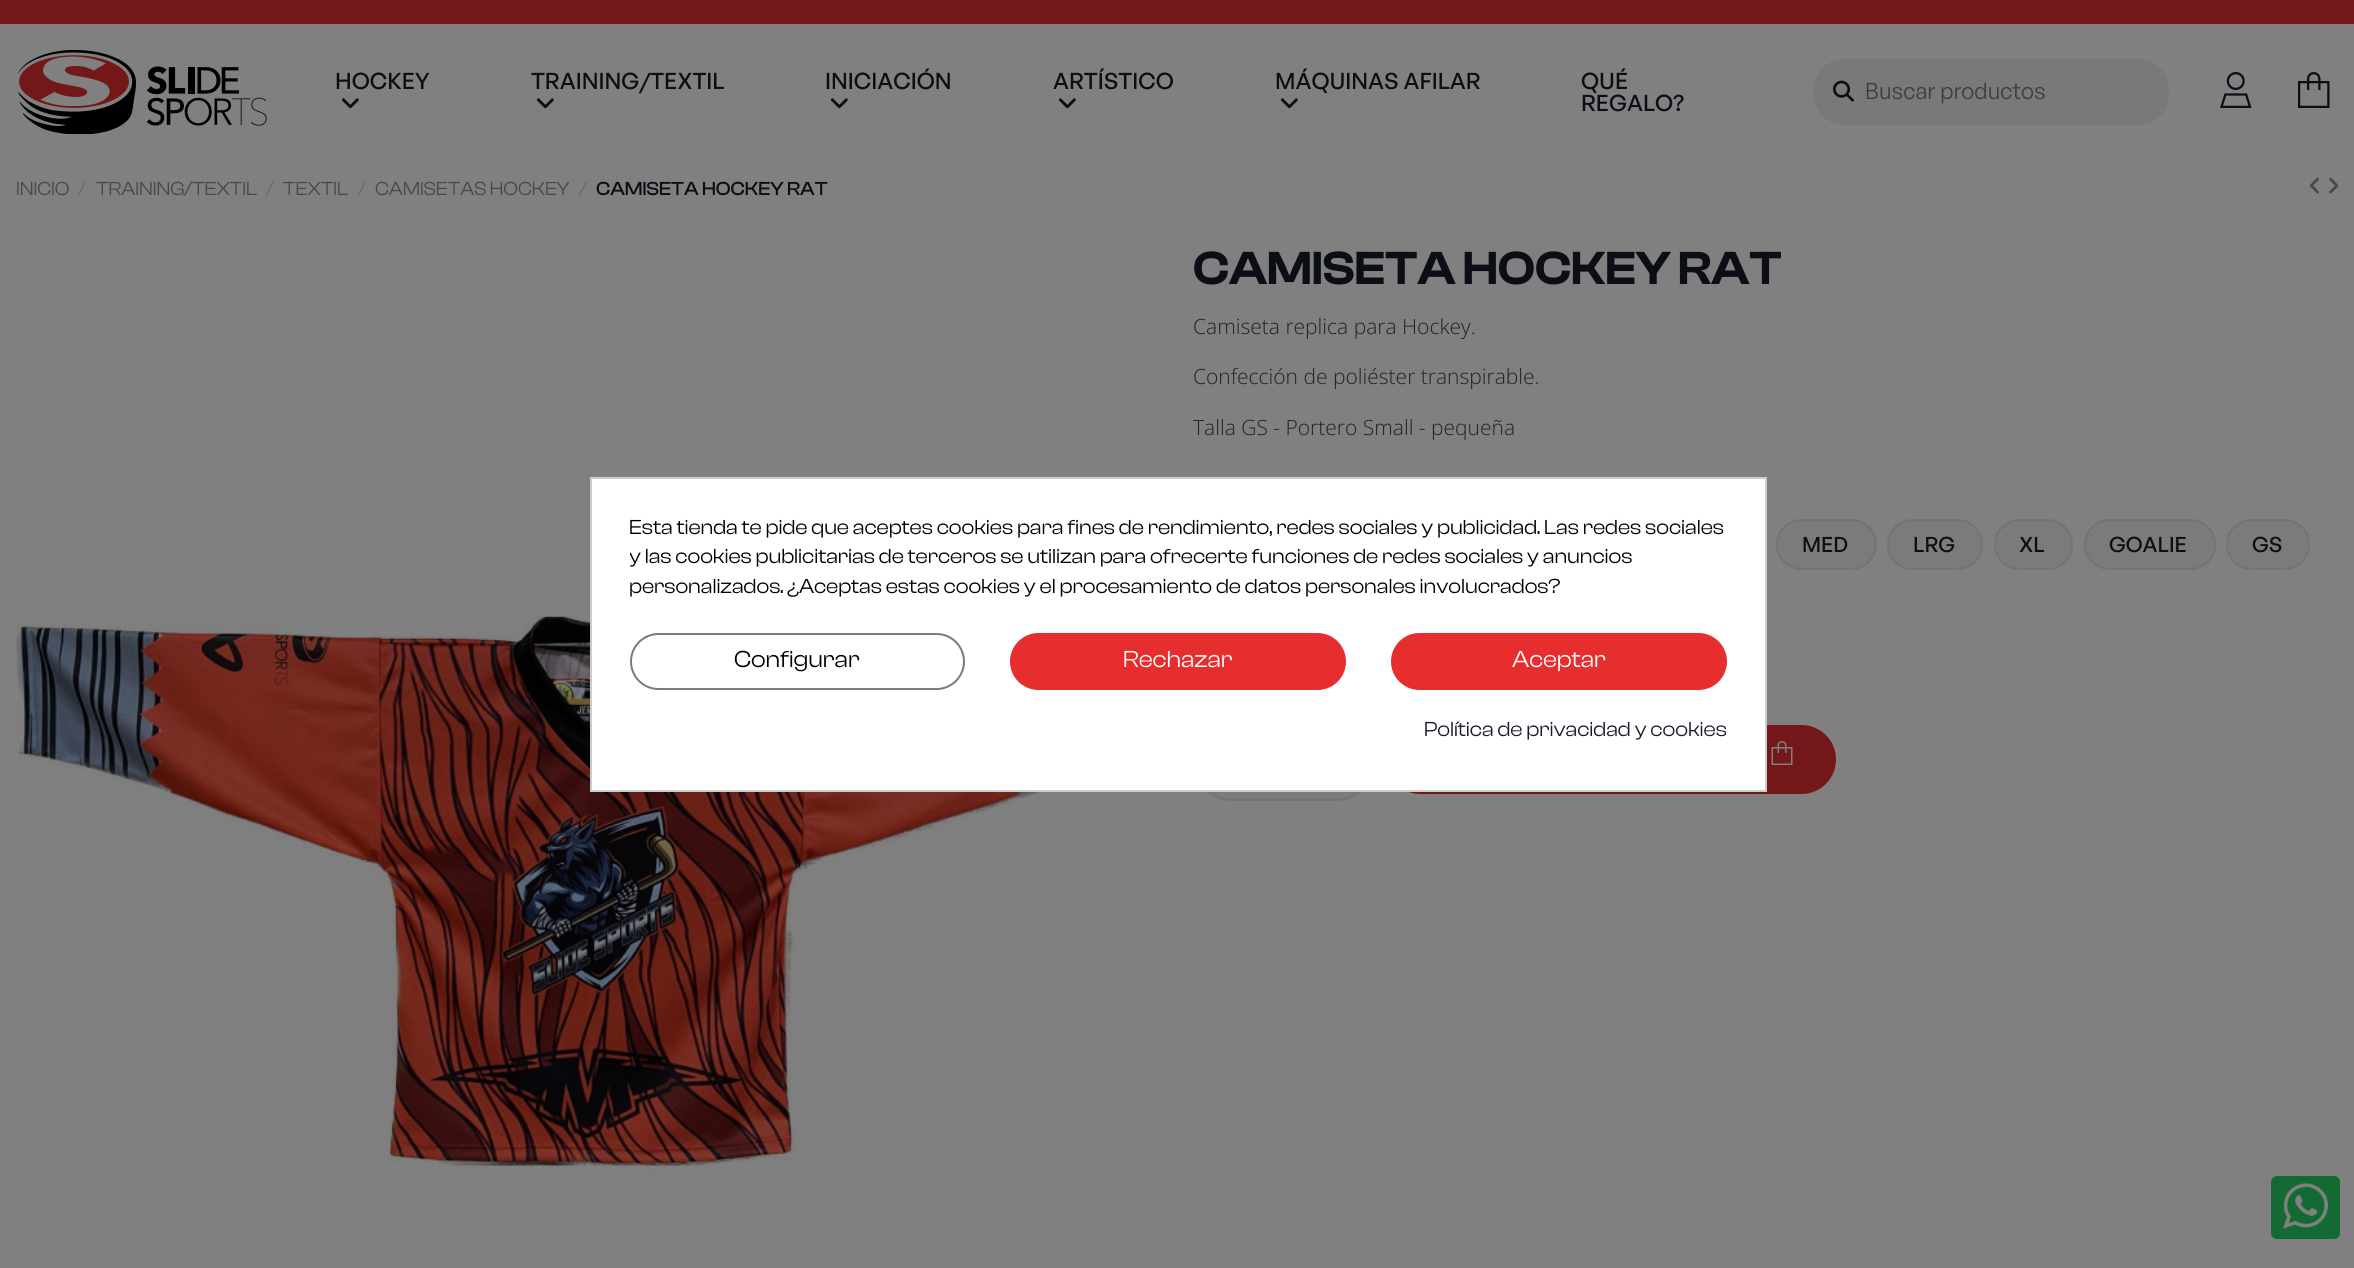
import math
import cairo

surface = cairo.ImageSurface(cairo.FORMAT_RGB24, 2354, 1268)
ctx = cairo.Context(surface)
options = cairo.FontOptions()
options.set_hint_metrics(cairo.HINT_METRICS_OFF)
options.set_hint_style(cairo.HINT_STYLE_NONE)
ctx.set_font_options(options)
ctx.set_miter_limit(4)


def set_color(code):
    ctx.set_source_rgb(*(v / 255 for v in bytes.fromhex(code[-6:])))


def draw_text(x, y, s, family, size, color, bold=False, italic=False):
    ctx.select_font_face(family, cairo.FONT_SLANT_ITALIC if italic else cairo.FONT_SLANT_NORMAL, cairo.FONT_WEIGHT_BOLD if bold else cairo.FONT_WEIGHT_NORMAL)
    ctx.set_font_size(size)
    set_color(color)
    ctx.move_to(x, y)
    ctx.show_text(s)


def fill_rect(x, y, w, h, color):
    set_color(color)
    ctx.rectangle(x, y, w, h)
    ctx.fill()


def rounded_rect(x, y, w, h, r):
    ctx.new_sub_path()
    for i, (u, v) in enumerate([(x + w - r, y + h - r), (x + r, y + h - r), (x + r, y + r), (x + w - r, y + r)]):
        ctx.arc(u, v, r, i * math.pi / 2, (i + 1) * math.pi / 2)
    ctx.close_path()


def draw_image(path, x, y, w, h):
    ctx.save()
    ctx.set_source_surface(cairo.ImageSurface.create_from_png(path), x, y)
    ctx.rectangle(x, y, w, h)
    ctx.fill()
    ctx.restore()


set_color("#808080")
ctx.paint()
fill_rect(0, 0, 2354, 24, "#731718")
draw_image("assets/img1.png", 18, 50, 249, 84)
draw_text(335, 89, "HOCKEY", "General Sans Medium", 22.5, "#0c0e16")
draw_image("assets/img2.png", 341, 98, 18, 11)
draw_text(531, 89, "TRAINING/TEXTIL", "General Sans Medium", 22.5, "#0c0e16")
draw_image("assets/img2.png", 536, 98, 18, 11)
draw_text(825, 89, "INICIACIÓN", "General Sans Medium", 22.5, "#0c0e16")
draw_image("assets/img2.png", 830, 98, 18, 11)
draw_text(1053, 89, "ARTÍSTICO", "General Sans Medium", 22.5, "#0c0e16")
draw_image("assets/img2.png", 1058, 98, 18, 11)
draw_text(1275, 89, "MÁQUINAS AFILAR", "General Sans Medium", 22.5, "#0c0e16")
draw_image("assets/img2.png", 1280, 98, 18, 11)
draw_text(1581, 89, "QUÉ", "General Sans Medium", 22.5, "#0c0e16")
draw_text(1581, 111, "REGALO?", "General Sans Medium", 22.5, "#0c0e16")
set_color("#797979")
rounded_rect(1814, 59, 355, 66, 30)
ctx.fill()
draw_image("assets/img3.png", 1833, 80, 21, 22)
draw_text(1865, 99, "Buscar productos", "General Sans", 22.5, "#3c3c3c")
draw_image("assets/img4.png", 2220, 72, 32, 36)
draw_image("assets/img5.png", 2298, 72, 32, 36)
draw_text(16, 195, "INICIO", "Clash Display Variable", 19.5, "#484848")
draw_text(78, 195, "/", "Clash Display Variable", 19.5, "#696969")
draw_text(96, 195, "TRAINING/TEXTIL", "Clash Display Variable", 19.5, "#484848")
draw_text(266, 195, "/", "Clash Display Variable", 19.5, "#696969")
draw_text(283, 195, "TEXTIL", "Clash Display Variable", 19.5, "#484848")
draw_text(358, 195, "/", "Clash Display Variable", 19.5, "#696969")
draw_text(375, 195, "CAMISETAS HOCKEY", "Clash Display Variable", 19.5, "#484848")
draw_text(579, 195, "/", "Clash Display Variable", 19.5, "#696969")
draw_text(596, 195, "CAMISETA HOCKEY RAT", "Clash Display Variable Medium", 19.5, "#0c0e16")
draw_image("assets/img6.png", 2309, 177, 10, 17)
draw_image("assets/img7.png", 2329, 177, 10, 17)
draw_text(1193, 284, "CAMISETA HOCKEY RAT", "Clash Display Variable SemiBold", 48, "#0c0e16")
draw_text(1193, 334, "Camiseta replica para Hockey.", "Open Sans Light", 21, "#222222")
draw_text(1193, 384, "Confección de poliéster transpirable.", "Open Sans Light", 21, "#222222")
draw_text(1193, 435, "Talla GS - Portero Small - pequeña", "Open Sans Light", 21, "#222222")
set_color("#7b7b7b")
rounded_rect(1777, 520, 99, 49, 24.5)
ctx.fill_preserve()
set_color("#737373")
ctx.stroke()
draw_text(1802, 552, "MED", "General Sans Medium", 21, "#0c0e16")
set_color("#7b7b7b")
rounded_rect(1888, 520, 94, 49, 24.5)
ctx.fill_preserve()
set_color("#737373")
ctx.stroke()
draw_text(1913, 552, "LRG", "General Sans Medium", 21, "#0c0e16")
set_color("#7b7b7b")
rounded_rect(1995, 520, 77, 49, 24.5)
ctx.fill_preserve()
set_color("#737373")
ctx.stroke()
draw_text(2019, 552, "XL", "General Sans Medium", 21, "#0c0e16")
set_color("#7b7b7b")
rounded_rect(2085, 520, 130, 49, 24.5)
ctx.fill_preserve()
set_color("#737373")
ctx.stroke()
draw_text(2109, 552, "GOALIE", "General Sans Medium", 21, "#0c0e16")
set_color("#7b7b7b")
rounded_rect(2227, 520, 82, 49, 24.5)
ctx.fill_preserve()
set_color("#737373")
ctx.stroke()
draw_text(2252, 552, "GS", "General Sans Medium", 21, "#0c0e16")
set_color("#7b7b7b")
rounded_rect(1195, 726, 178, 74, 37)
ctx.fill_preserve()
set_color("#737373")
ctx.stroke()
set_color("#731718")
rounded_rect(1387, 726, 448, 67, 33.5)
ctx.fill_preserve()
ctx.stroke()
draw_image("assets/img8.png", 1771, 741, 22, 24)
draw_image("assets/img9.png", 16, 616, 1147, 557)
set_color("#ffffff")
ctx.rectangle(591, 478, 1175, 313)
ctx.fill_preserve()
set_color("#cccccc")
ctx.stroke()
ctx.save()
ctx.rectangle(630, 515, 1098, 88)
ctx.clip()
draw_text(629, 534, "Esta tienda te pide que aceptes cookies para fines de rendimiento, redes sociales y publicidad. Las redes sociales", "Clash Display Variable", 21, "#000000")
draw_text(629, 563, "y las cookies publicitarias de terceros se utilizan para ofrecerte funciones de redes sociales y anuncios", "Clash Display Variable", 21, "#000000")
draw_text(629, 593, "personalizados. ¿Aceptas estas cookies y el procesamiento de datos personales involucrados?", "Clash Display Variable", 21, "#000000")
ctx.restore()
rounded_rect(631, 634, 333, 55, 27.5)
set_color("#7a7a7a")
ctx.stroke()
draw_text(734, 667, "Configurar", "Clash Display Variable", 24, "#000000")
set_color("#e62e2f")
rounded_rect(1011, 634, 334, 55, 27.5)
ctx.fill_preserve()
ctx.stroke()
draw_text(1123, 667, "Rechazar", "Clash Display Variable", 24, "#ffffff")
set_color("#e62e2f")
rounded_rect(1392, 634, 334, 55, 27.5)
ctx.fill_preserve()
ctx.stroke()
draw_text(1512, 667, "Aceptar", "Clash Display Variable", 24, "#ffffff")
draw_text(1424, 736, "Política de privacidad y cookies", "Clash Display Variable", 21, "#171b2b")
set_color("#136a33")
rounded_rect(2271, 1176, 69, 63, 6)
ctx.fill()
draw_image("assets/img10.png", 2283, 1183, 45, 46)
surface.write_to_png("output.png")
